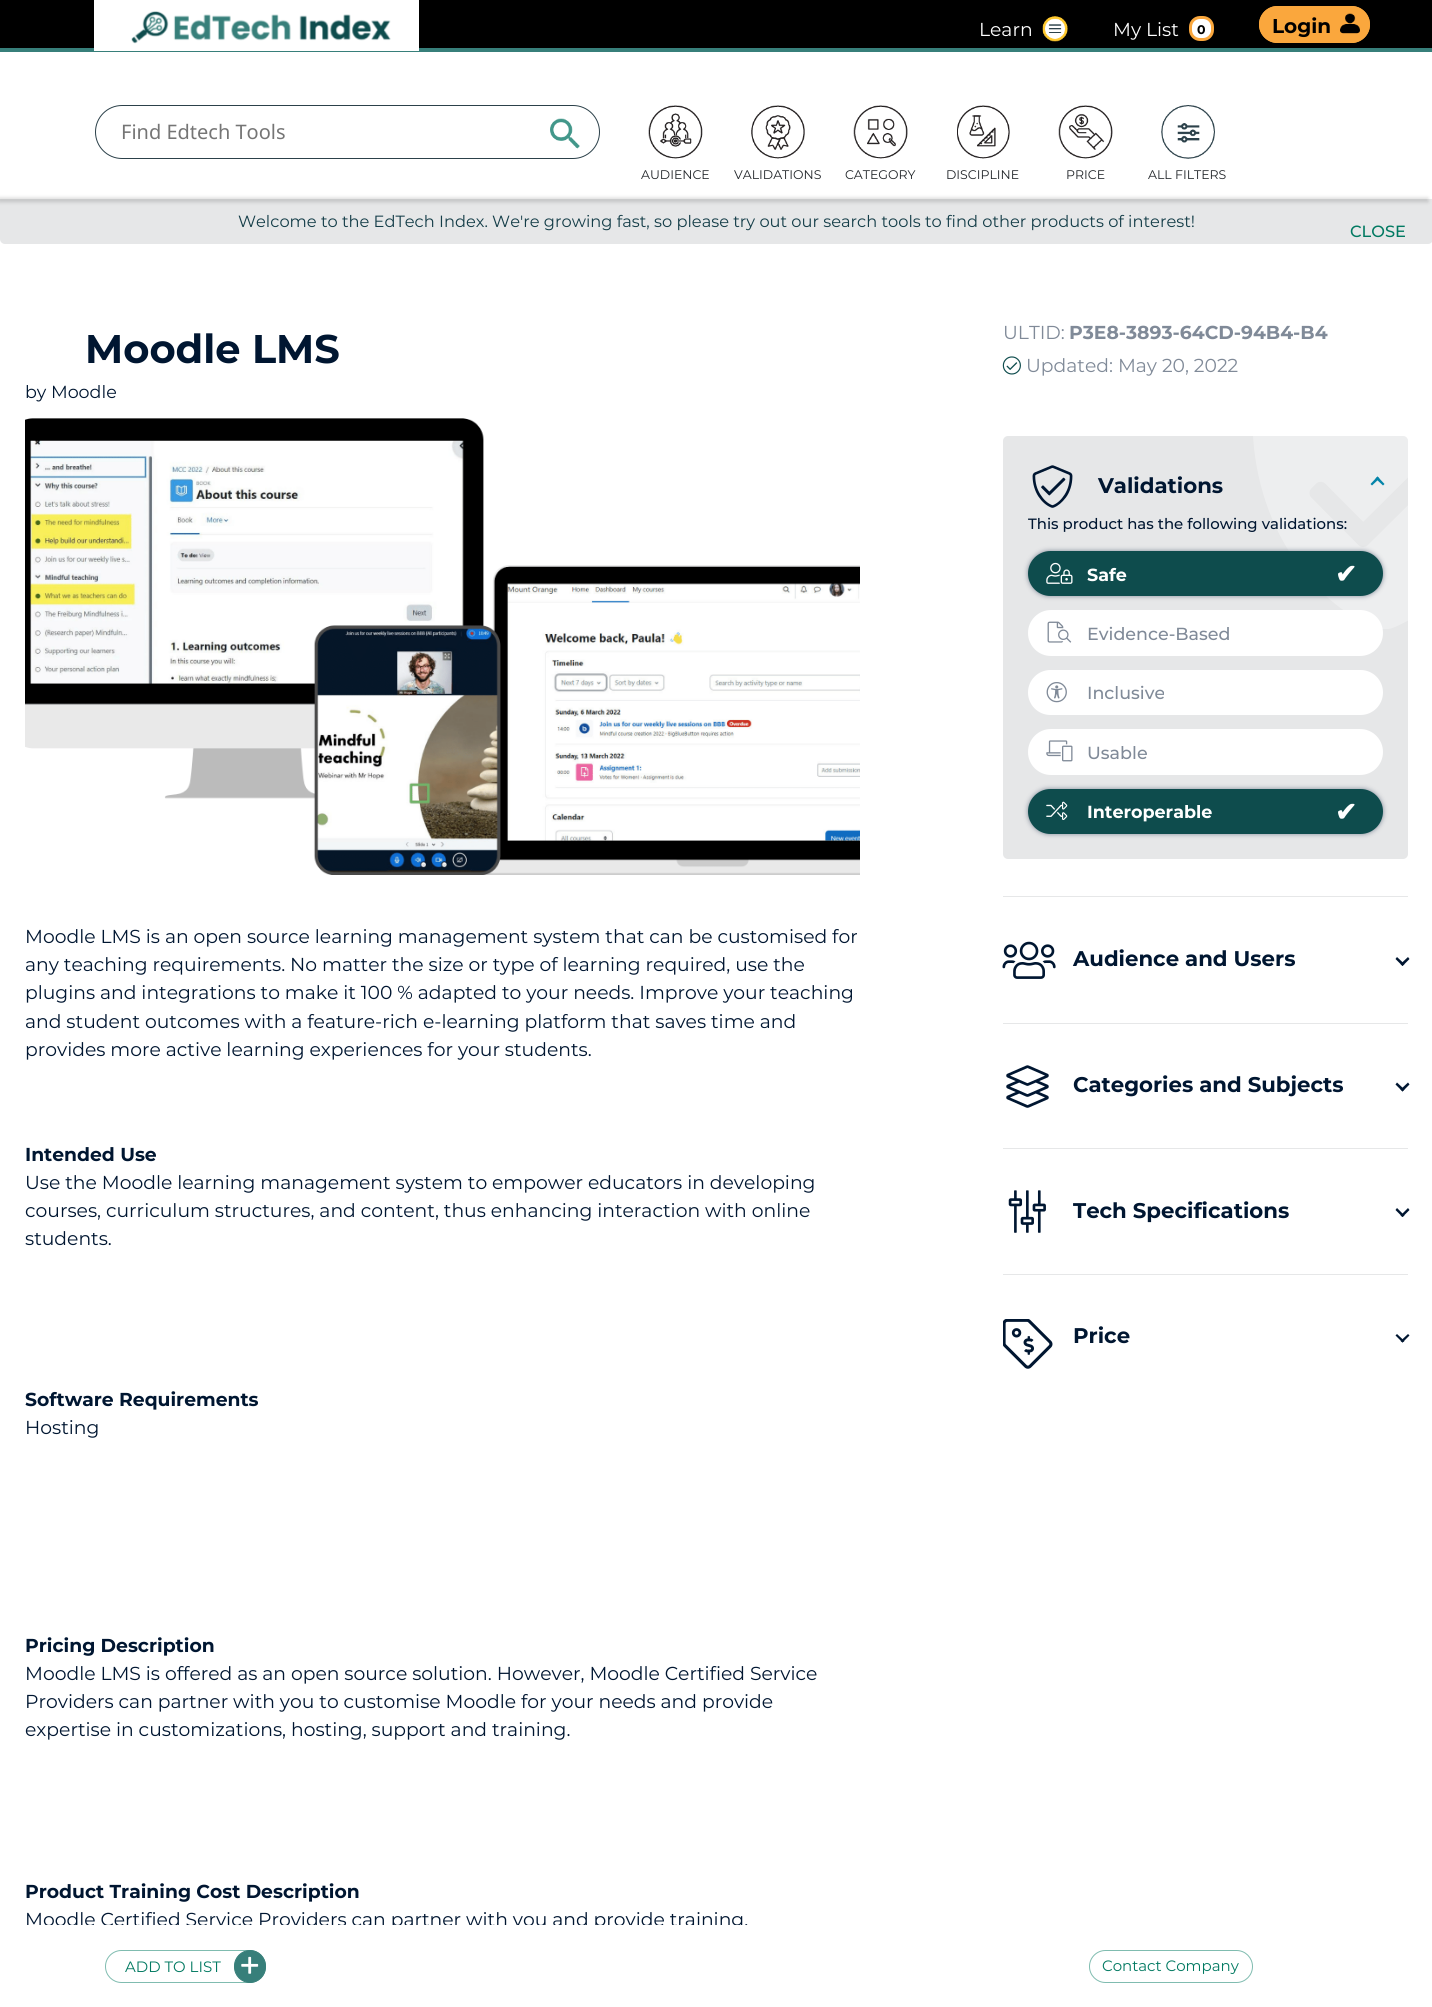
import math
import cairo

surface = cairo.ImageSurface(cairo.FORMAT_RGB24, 1432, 2007)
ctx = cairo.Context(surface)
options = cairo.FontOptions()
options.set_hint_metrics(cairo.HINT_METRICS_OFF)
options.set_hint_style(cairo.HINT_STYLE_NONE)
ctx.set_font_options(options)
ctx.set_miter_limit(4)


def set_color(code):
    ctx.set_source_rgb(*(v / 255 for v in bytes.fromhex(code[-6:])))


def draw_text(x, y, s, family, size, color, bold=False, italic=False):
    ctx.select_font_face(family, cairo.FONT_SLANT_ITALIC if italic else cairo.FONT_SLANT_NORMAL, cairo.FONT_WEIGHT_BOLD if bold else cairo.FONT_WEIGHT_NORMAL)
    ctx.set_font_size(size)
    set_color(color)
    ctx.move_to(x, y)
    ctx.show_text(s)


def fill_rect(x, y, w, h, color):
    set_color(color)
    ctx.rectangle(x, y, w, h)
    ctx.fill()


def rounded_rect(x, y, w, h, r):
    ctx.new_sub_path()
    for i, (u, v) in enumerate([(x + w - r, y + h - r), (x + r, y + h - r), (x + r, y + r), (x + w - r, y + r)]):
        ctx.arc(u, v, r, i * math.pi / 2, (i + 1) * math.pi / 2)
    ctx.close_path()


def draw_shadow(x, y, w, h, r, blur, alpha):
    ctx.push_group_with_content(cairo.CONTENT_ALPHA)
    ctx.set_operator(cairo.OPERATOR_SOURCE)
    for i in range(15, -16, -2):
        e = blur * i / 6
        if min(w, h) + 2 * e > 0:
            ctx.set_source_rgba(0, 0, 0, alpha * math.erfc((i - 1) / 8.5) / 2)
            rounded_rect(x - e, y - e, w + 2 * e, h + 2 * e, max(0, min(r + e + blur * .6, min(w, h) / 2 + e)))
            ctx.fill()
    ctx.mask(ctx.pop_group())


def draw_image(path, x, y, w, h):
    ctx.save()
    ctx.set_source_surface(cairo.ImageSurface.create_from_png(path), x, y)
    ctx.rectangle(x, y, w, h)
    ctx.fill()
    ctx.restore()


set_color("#ffffff")
ctx.paint()
fill_rect(0, 0, 1432, 48, "#000000")
fill_rect(0, 48, 1432, 4, "#377f7a")
fill_rect(94, 0, 325, 51, "#ffffff")
draw_image("assets/img1.png", 131, 11, 260, 33)
draw_text(979, 36, "Learn", "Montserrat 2 Thin", 18.75, "#ffffff")
draw_image("assets/img2.png", 1042, 16, 26, 26)
draw_text(1113, 36, "My List", "Montserrat 2 Thin", 18.75, "#ffffff")
rounded_rect(1190.5, 17.5, 22, 22, 9.5)
ctx.fill_preserve()
set_color("#faa73d")
ctx.set_line_width(3)
ctx.stroke()
draw_text(1197, 34, "0", "Montserrat Thin", 12.5, "#000000")
set_color("#faa73d")
rounded_rect(1259, 6, 111, 37, 18.5)
ctx.fill()
draw_image("assets/img3.png", 1340, 13, 20, 21)
rounded_rect(1259.5, 6.5, 110, 36, 18)
ctx.set_line_width(1)
ctx.stroke()
draw_text(1272, 33, "Login", "Montserrat Thin", 20, "#000000")
set_color("#e6e7e8")
rounded_rect(0, 194, 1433, 50, 5)
ctx.fill()
fill_rect(0, 194, 1432, 5, "#ffffff")
draw_image("assets/img4.png", 550, 118, 30, 31)
rounded_rect(95.5, 105.5, 504, 53, 26.5)
set_color("#2c414a")
ctx.stroke()
draw_text(121, 139, "Find Edtech Tools", "Noto Sans", 20, "#757575")
draw_image("assets/img5.png", 648, 105, 55, 54)
draw_text(641, 179, "AUDIENCE", "Montserrat 2 Thin", 12.5, "#212529")
draw_image("assets/img6.png", 751, 105, 54, 54)
draw_text(734, 179, "VALIDATIONS", "Montserrat 2 Thin", 12.5, "#212529")
draw_image("assets/img7.png", 853, 105, 55, 54)
draw_text(845, 179, "CATEGORY", "Montserrat 2 Thin", 12.5, "#212529")
draw_image("assets/img8.png", 957, 105, 53, 54)
draw_text(946, 179, "DISCIPLINE", "Montserrat 2 Thin", 12.5, "#212529")
draw_image("assets/img9.png", 1058, 105, 55, 54)
draw_text(1066, 179, "PRICE", "Montserrat 2 Thin", 12.5, "#212529")
draw_image("assets/img10.png", 1161, 105, 54, 54)
draw_text(1148, 179, "ALL FILTERS", "Montserrat 2 Thin", 12.5, "#212529")
set_color("#000000")
draw_shadow(-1, 198, 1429, 4, 0, 2, 0.16)
draw_text(238, 227, "Welcome to the EdTech Index. We're growing fast, so please try out our search tools to find other products of interest!", "Montserrat 2 Thin", 16.25, "#143d48")
draw_text(1350, 237, "CLOSE", "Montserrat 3 Thin", 16.25, "#017961")
draw_text(85, 363, "Moodle LMS", "Montserrat Thin", 40, "#001631")
draw_text(25, 398, "by Moodle", "Montserrat 2 Thin", 17.5, "#001631")
draw_image("assets/img11.png", 25, 418, 835, 457)
draw_text(25, 943, "Moodle LMS is an open source learning management system that can be customised for", "Montserrat 2 Thin", 18.75, "#001631")
draw_text(25, 971, "any teaching requirements. No matter the size or type of learning required, use the", "Montserrat 2 Thin", 18.75, "#001631")
draw_text(25, 999, "plugins and integrations to make it 100 % adapted to your needs. Improve your teaching", "Montserrat 2 Thin", 18.75, "#001631")
draw_text(25, 1028, "and student outcomes with a feature-rich e-learning platform that saves time and", "Montserrat 2 Thin", 18.75, "#001631")
draw_text(25, 1056, "provides more active learning experiences for your students.", "Montserrat 2 Thin", 18.75, "#001631")
draw_text(25, 1161, "Intended Use", "Montserrat Thin", 18.75, "#001631")
draw_text(25, 1189, "Use the Moodle learning management system to empower educators in developing", "Montserrat 2 Thin", 18.75, "#001631")
draw_text(25, 1217, "courses, curriculum structures, and content, thus enhancing interaction with online", "Montserrat 2 Thin", 18.75, "#001631")
draw_text(25, 1245, "students.", "Montserrat 2 Thin", 18.75, "#001631")
draw_text(25, 1406, "Software Requirements", "Montserrat Thin", 18.75, "#001631")
draw_text(25, 1434, "Hosting", "Montserrat 2 Thin", 18.75, "#001631")
draw_text(25, 1652, "Pricing Description", "Montserrat Thin", 18.75, "#001631")
draw_text(25, 1680, "Moodle LMS is offered as an open source solution. However, Moodle Certified Service", "Montserrat 2 Thin", 18.75, "#001631")
draw_text(25, 1708, "Providers can partner with you to customise Moodle for your needs and provide", "Montserrat 2 Thin", 18.75, "#001631")
draw_text(25, 1736, "expertise in customizations, hosting, support and training.", "Montserrat 2 Thin", 18.75, "#001631")
draw_text(25, 1898, "Product Training Cost Description", "Montserrat Thin", 18.75, "#001631")
draw_text(25, 1926, "Moodle Certified Service Providers can partner with you and provide training.", "Montserrat 2 Thin", 18.75, "#001631")
draw_text(1003, 339, "ULTID:", "Montserrat 2 Thin", 18.75, "#808a98")
draw_text(1069, 339, "P3E8-3893-64CD-94B4-B4", "Montserrat Thin", 18.75, "#808a98")
draw_image("assets/img12.png", 1002, 356, 19, 19)
draw_text(1026, 372, "Updated: May 20, 2022", "Montserrat 2 Thin", 18.75, "#808a98")
set_color("#e6e7e8")
rounded_rect(1003, 436, 405, 423, 5)
ctx.fill()
draw_image("assets/img13.png", 1253, 436, 155, 193)
draw_image("assets/img14.png", 1032, 465, 41, 43)
draw_text(1098, 493, "Validations", "Montserrat Thin", 21.25, "#001631")
set_color("#0484a9")
ctx.new_path()
ctx.move_to(1372, 485.5)
ctx.line_to(1370.5, 484)
ctx.line_to(1377.5, 476.5)
ctx.line_to(1379.5, 478.5)
ctx.close_path()
ctx.fill()
ctx.new_path()
ctx.move_to(1383, 485.5)
ctx.line_to(1375.5, 478.5)
ctx.line_to(1377.5, 476.5)
ctx.line_to(1384.5, 484)
ctx.close_path()
ctx.fill()
draw_text(1028, 529, "This product has the following validations:", "Montserrat 3 Thin", 14.9, "#001631")
set_color("#808a98")
draw_shadow(1028, 551, 355, 45, 22.5, 2.5, 1)
set_color("#0e4c4d")
rounded_rect(1028, 551, 355, 45, 22.5)
ctx.fill()
draw_image("assets/img15.png", 1046, 562, 27, 22)
draw_text(1087, 581, "Safe", "Montserrat Thin", 17.5, "#ffffff")
draw_text(1335, 583, "✔", "DejaVu Sans", 26, "#ffffff", bold=True)
rounded_rect(1028, 610, 355, 46, 23)
ctx.fill()
draw_image("assets/img16.png", 1047, 621, 25, 22)
draw_text(1087, 640, "Evidence-Based", "Montserrat 3 Thin", 17.5, "#808a98")
set_color("#ffffff")
rounded_rect(1028, 670, 355, 45, 22.5)
ctx.fill()
draw_image("assets/img17.png", 1046, 682, 21, 21)
draw_text(1087, 699, "Inclusive", "Montserrat 3 Thin", 17.5, "#808a98")
set_color("#ffffff")
rounded_rect(1028, 729, 355, 46, 23)
ctx.fill()
draw_image("assets/img18.png", 1046, 740, 27, 22)
draw_text(1087, 759, "Usable", "Montserrat 3 Thin", 17.5, "#808a98")
set_color("#808a98")
draw_shadow(1028, 789, 355, 45, 22.5, 2.5, 1)
set_color("#0e4c4d")
rounded_rect(1028, 789, 355, 45, 22.5)
ctx.fill()
draw_image("assets/img19.png", 1046, 801, 22, 19)
draw_text(1087, 818, "Interoperable", "Montserrat Thin", 17.5, "#ffffff")
draw_text(1335, 821, "✔", "DejaVu Sans", 26, "#ffffff", bold=True)
fill_rect(1003, 896, 405, 1, "#e6e7e8")
draw_image("assets/img20.png", 1002, 941, 54, 38)
draw_text(1073, 966, "Audience and Users", "Montserrat Thin", 21.25, "#001631")
ctx.new_path()
ctx.move_to(1408, 957)
ctx.line_to(1409.5, 959)
ctx.line_to(1402.5, 966)
ctx.line_to(1400.5, 964)
ctx.close_path()
ctx.fill()
ctx.new_path()
ctx.move_to(1397, 957)
ctx.line_to(1404.5, 964)
ctx.line_to(1402.5, 966)
ctx.line_to(1395.5, 959)
ctx.close_path()
ctx.fill()
fill_rect(1003, 1023, 405, 1, "#e6e7e8")
draw_image("assets/img21.png", 1006, 1065, 43, 43)
draw_text(1073, 1092, "Categories and Subjects", "Montserrat Thin", 21.25, "#001631")
ctx.new_path()
ctx.move_to(1408, 1082.5)
ctx.line_to(1409.5, 1084.5)
ctx.line_to(1402.5, 1091.5)
ctx.line_to(1400.5, 1089.5)
ctx.close_path()
ctx.fill()
ctx.new_path()
ctx.move_to(1397, 1082.5)
ctx.line_to(1404.5, 1089.5)
ctx.line_to(1402.5, 1091.5)
ctx.line_to(1395.5, 1084.5)
ctx.close_path()
ctx.fill()
fill_rect(1003, 1148, 405, 1, "#e6e7e8")
draw_image("assets/img22.png", 1008, 1190, 38, 43)
draw_text(1073, 1218, "Tech Specifications", "Montserrat Thin", 21.25, "#001631")
ctx.new_path()
ctx.move_to(1408, 1208)
ctx.line_to(1409.5, 1210)
ctx.line_to(1402.5, 1217)
ctx.line_to(1400.5, 1215.5)
ctx.close_path()
ctx.fill()
ctx.new_path()
ctx.move_to(1397, 1208)
ctx.line_to(1404.5, 1215.5)
ctx.line_to(1402.5, 1217)
ctx.line_to(1395.5, 1210)
ctx.close_path()
ctx.fill()
fill_rect(1003, 1274, 405, 1, "#e6e7e8")
draw_image("assets/img23.png", 1003, 1319, 50, 50)
draw_text(1073, 1343, "Price", "Montserrat Thin", 21.25, "#001631")
ctx.new_path()
ctx.move_to(1408, 1334)
ctx.line_to(1409.5, 1335.5)
ctx.line_to(1402.5, 1342.5)
ctx.line_to(1400.5, 1341)
ctx.close_path()
ctx.fill()
ctx.new_path()
ctx.move_to(1397, 1334)
ctx.line_to(1404.5, 1341)
ctx.line_to(1402.5, 1342.5)
ctx.line_to(1395.5, 1335.5)
ctx.close_path()
ctx.fill()
fill_rect(27, 1925, 721, 5, "#ffffff")
rounded_rect(105.5, 1950.5, 160, 32, 16)
set_color("#80bcb0")
ctx.stroke()
draw_text(125, 1972, "ADD TO LIST", "Montserrat 2 Thin", 15, "#017961")
set_color("#377f7a")
rounded_rect(234.5, 1950.5, 31, 32, 15.5)
ctx.fill_preserve()
ctx.stroke()
draw_image("assets/img24.png", 241, 1956, 18, 18)
rounded_rect(1089.5, 1950.5, 163, 32, 16)
set_color("#80bcb0")
ctx.stroke()
draw_text(1102, 1971, "Contact Company", "Montserrat 2 Thin", 15, "#017961")
surface.write_to_png("output.png")
